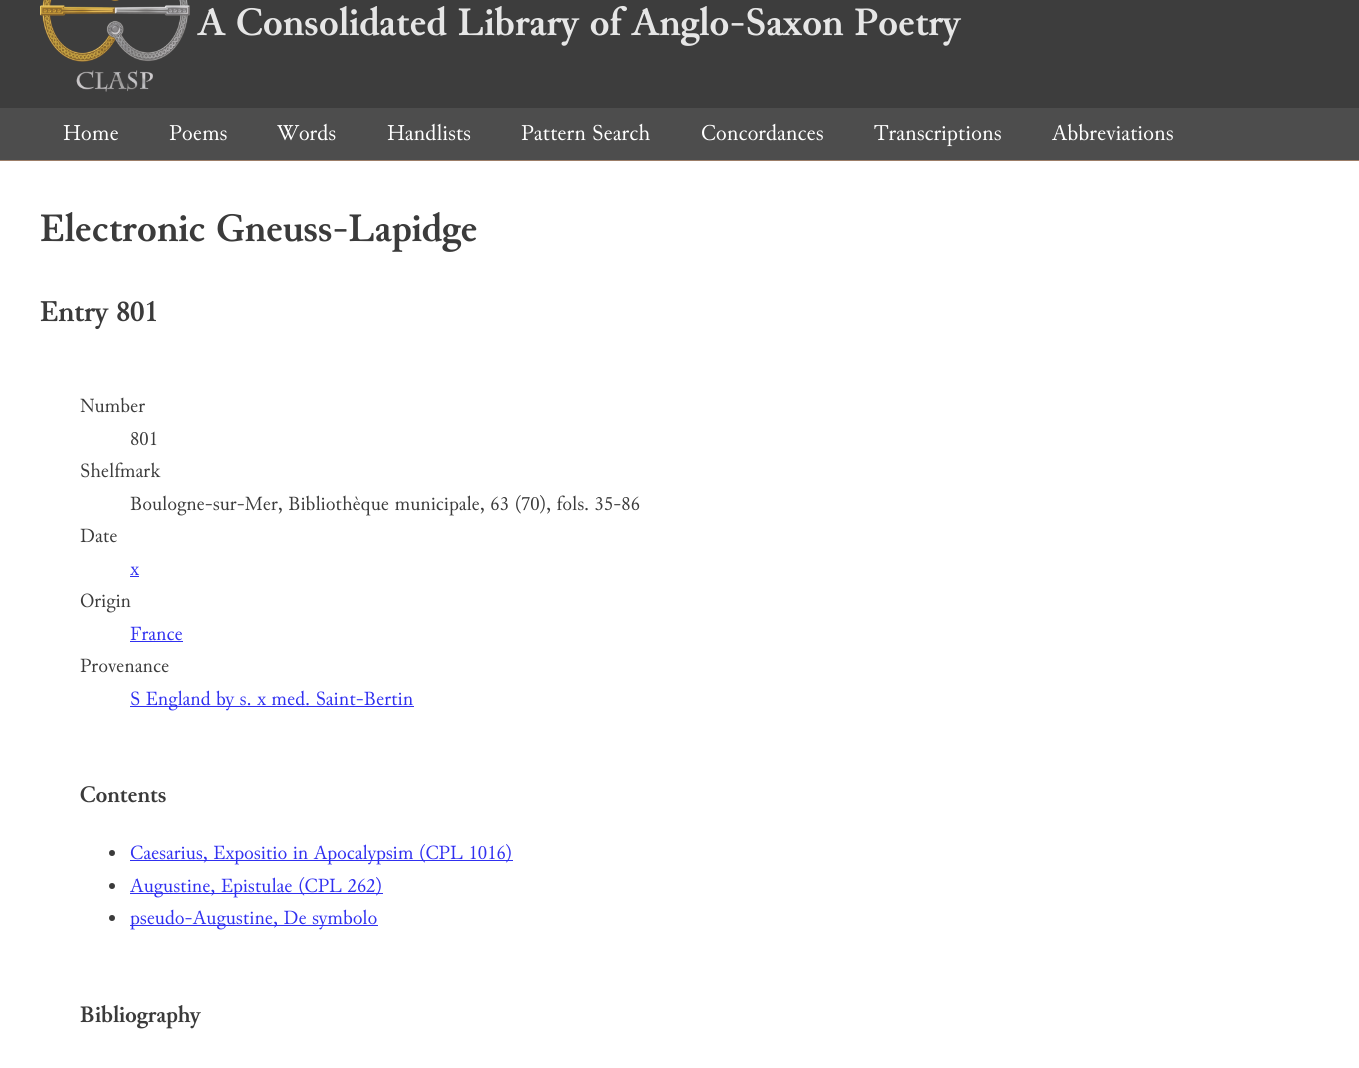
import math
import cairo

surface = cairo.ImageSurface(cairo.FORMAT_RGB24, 1359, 1068)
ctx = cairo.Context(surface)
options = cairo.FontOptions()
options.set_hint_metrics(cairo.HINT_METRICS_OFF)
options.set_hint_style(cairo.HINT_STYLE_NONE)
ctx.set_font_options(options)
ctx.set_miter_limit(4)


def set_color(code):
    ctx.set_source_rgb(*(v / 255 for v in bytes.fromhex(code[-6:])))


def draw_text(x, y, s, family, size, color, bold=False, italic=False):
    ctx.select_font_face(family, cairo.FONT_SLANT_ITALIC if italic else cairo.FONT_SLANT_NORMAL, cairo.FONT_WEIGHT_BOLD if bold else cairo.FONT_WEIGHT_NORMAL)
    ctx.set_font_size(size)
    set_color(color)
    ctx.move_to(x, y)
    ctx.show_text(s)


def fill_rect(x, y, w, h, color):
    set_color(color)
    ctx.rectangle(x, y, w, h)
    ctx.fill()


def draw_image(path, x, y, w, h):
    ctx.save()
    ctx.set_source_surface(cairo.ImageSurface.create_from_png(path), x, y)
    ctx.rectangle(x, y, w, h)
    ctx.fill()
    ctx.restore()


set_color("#ffffff")
ctx.paint()
fill_rect(0, 0, 1359, 108, "#3d3d3d")
draw_image("assets/img1.png", 40, 0, 150, 92)
draw_text(198, 35, "A Consolidated Library of Anglo-Saxon Poetry", "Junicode", 40, "#e6e6e6", bold=True)
fill_rect(0, 108, 1359, 52, "#4d4d4d")
fill_rect(0, 160, 1359, 1, "#9c7e68")
draw_text(63, 140, "Home", "Junicode", 22.5, "#ffffff")
draw_text(169, 140, "Poems", "Junicode", 22.5, "#ffffff")
draw_text(277, 140, "Words", "Junicode", 22.5, "#ffffff")
draw_text(387, 140, "Handlists", "Junicode", 22.5, "#ffffff")
draw_text(521, 140, "Pattern Search", "Junicode", 22.5, "#ffffff")
draw_text(701, 140, "Concordances", "Junicode", 22.5, "#ffffff")
draw_text(874, 140, "Transcriptions", "Junicode", 22.5, "#ffffff")
draw_text(1052, 140, "Abbreviations", "Junicode", 22.5, "#ffffff")
draw_text(40, 241, "Electronic Gneuss-Lapidge", "Junicode", 40, "#3b3b3b", bold=True)
draw_text(40, 321, "Entry 801", "Junicode", 30, "#3b3b3b", bold=True)
draw_text(80, 412, "Number", "Junicode", 20, "#3b3b3b")
draw_text(130, 445, "801", "Junicode", 20, "#3b3b3b")
draw_text(80, 477, "Shelfmark", "Junicode", 20, "#3b3b3b")
draw_text(130, 510, "Boulogne-sur-Mer, Bibliothèque municipale, 63 (70), fols. 35-86", "Junicode", 20, "#3b3b3b")
draw_text(80, 542, "Date", "Junicode", 20, "#3b3b3b")
draw_text(130, 575, "x", "Junicode", 20, "#3030f0")
fill_rect(130, 576, 9, 1, "#3030f0")
draw_text(80, 607, "Origin", "Junicode", 20, "#3b3b3b")
draw_text(130, 640, "France", "Junicode", 20, "#3030f0")
fill_rect(130, 641, 53, 1, "#3030f0")
draw_text(80, 672, "Provenance", "Junicode", 20, "#3b3b3b")
fill_rect(130, 706, 284, 1, "#3030f0")
draw_text(130, 705, "S England by s. x med. Saint-Bertin", "Junicode", 20, "#3030f0")
draw_text(80, 802, "Contents", "Junicode", 23.5, "#3b3b3b", bold=True)
ctx.new_path()
ctx.arc(112, 853, 3, 0, 2 * math.pi)
ctx.fill()
fill_rect(130, 860, 383, 1, "#3030f0")
draw_text(130, 859, "Caesarius, Expositio in Apocalypsim (CPL 1016)", "Junicode", 20, "#3030f0")
set_color("#3b3b3b")
ctx.new_path()
ctx.arc(112, 886, 3, 0, 2 * math.pi)
ctx.fill()
fill_rect(130, 893, 253, 1, "#3030f0")
draw_text(130, 892, "Augustine, Epistulae (CPL 262)", "Junicode", 20, "#3030f0")
set_color("#3b3b3b")
ctx.new_path()
ctx.arc(112, 918, 3, 0, 2 * math.pi)
ctx.fill()
fill_rect(130, 925, 248, 1, "#3030f0")
draw_text(130, 924, "pseudo-Augustine, De symbolo", "Junicode", 20, "#3030f0")
draw_text(80, 1022, "Bibliography", "Junicode", 23.5, "#3b3b3b", bold=True)
surface.write_to_png("output.png")
